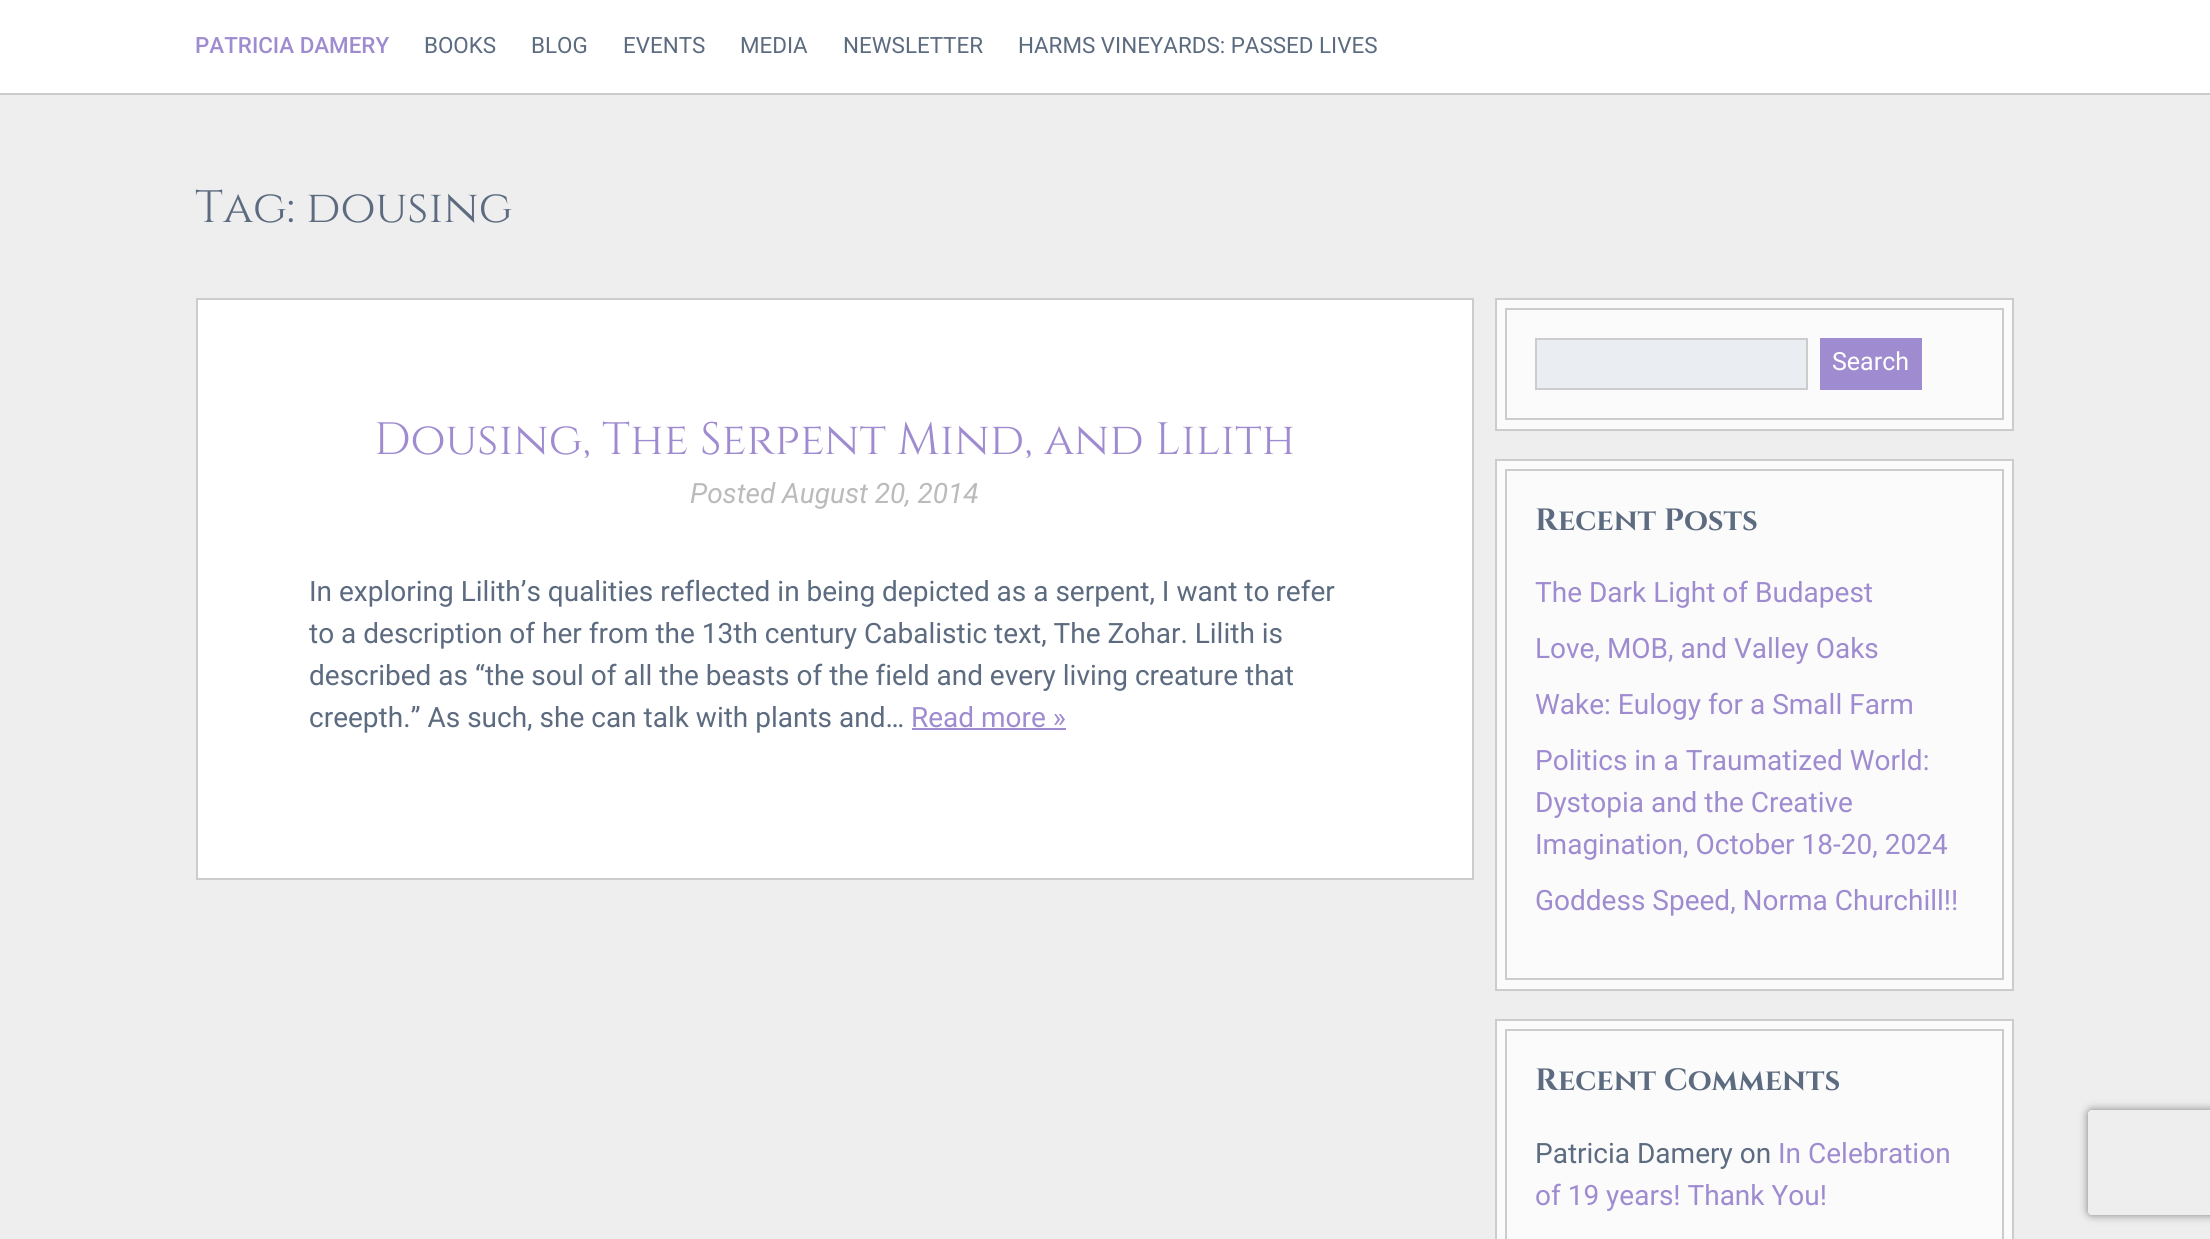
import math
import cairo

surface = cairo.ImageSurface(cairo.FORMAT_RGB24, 2210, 1239)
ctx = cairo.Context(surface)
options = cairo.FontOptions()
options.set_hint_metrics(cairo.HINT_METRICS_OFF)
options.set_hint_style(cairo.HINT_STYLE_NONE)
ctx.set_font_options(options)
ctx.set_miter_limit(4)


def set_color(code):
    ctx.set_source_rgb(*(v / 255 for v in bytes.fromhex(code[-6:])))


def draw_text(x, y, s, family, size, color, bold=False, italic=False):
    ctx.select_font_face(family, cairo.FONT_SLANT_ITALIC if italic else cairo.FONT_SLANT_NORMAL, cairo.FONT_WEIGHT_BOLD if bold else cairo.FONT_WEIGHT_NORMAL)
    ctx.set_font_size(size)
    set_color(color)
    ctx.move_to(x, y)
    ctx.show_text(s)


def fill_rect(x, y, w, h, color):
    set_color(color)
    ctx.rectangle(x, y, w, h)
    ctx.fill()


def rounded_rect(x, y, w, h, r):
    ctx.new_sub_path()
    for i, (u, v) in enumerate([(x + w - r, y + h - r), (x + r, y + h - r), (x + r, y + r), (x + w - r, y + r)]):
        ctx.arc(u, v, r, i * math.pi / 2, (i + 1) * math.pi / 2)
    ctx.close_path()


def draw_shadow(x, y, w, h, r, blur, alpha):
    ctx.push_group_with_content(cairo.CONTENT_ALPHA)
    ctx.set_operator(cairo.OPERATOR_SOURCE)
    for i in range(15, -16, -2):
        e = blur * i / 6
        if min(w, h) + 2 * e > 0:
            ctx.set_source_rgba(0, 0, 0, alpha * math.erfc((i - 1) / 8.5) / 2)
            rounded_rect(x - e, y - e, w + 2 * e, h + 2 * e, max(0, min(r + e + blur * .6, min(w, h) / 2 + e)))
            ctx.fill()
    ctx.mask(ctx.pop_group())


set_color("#ffffff")
ctx.paint()
fill_rect(0, 93, 2210, 2, "#cccccc")
draw_text(195, 53, "PATRICIA DAMERY", "Roboto Medium", 22.4, "#9f8cd0")
draw_text(424, 53, "BOOKS", "Roboto", 22.4, "#5c6b80")
draw_text(531, 53, "BLOG", "Roboto", 22.4, "#5c6b80")
draw_text(623, 53, "EVENTS", "Roboto", 22.4, "#5c6b80")
draw_text(740, 53, "MEDIA", "Roboto", 22.4, "#5c6b80")
draw_text(843, 53, "NEWSLETTER", "Roboto", 22.4, "#5c6b80")
draw_text(1018, 53, "HARMS VINEYARDS: PASSED LIVES", "Roboto", 22.4, "#5c6b80")
fill_rect(0, 95, 2210, 1144, "#eeeeee")
draw_text(195, 222, "Tag: dousing", "Cinzel", 45.3, "#5c6b80")
set_color("#ffffff")
ctx.rectangle(197, 299, 1276, 580)
ctx.fill_preserve()
set_color("#cccccc")
ctx.stroke()
draw_text(374, 454, "Dousing, The Serpent Mind, and Lilith", "Cinzel", 45.3, "#9f8cd0")
draw_text(690, 503, "Posted August 20, 2014", "Roboto", 28, "#bbbbbb", italic=True)
draw_text(309, 601, "In exploring Lilith’s qualities reflected in being depicted as a serpent, I want to refer", "Roboto", 28, "#5c6b80")
draw_text(309, 643, "to a description of her from the 13th century Cabalistic text, The Zohar. Lilith is", "Roboto", 28, "#5c6b80")
draw_text(309, 685, "described as “the soul of all the beasts of the field and every living creature that", "Roboto", 28, "#5c6b80")
draw_text(309, 727, "creepth.” As such, she can talk with plants and…", "Roboto", 28, "#5c6b80")
draw_text(911, 727, "Read more »", "Roboto", 28, "#9f8cd0")
fill_rect(912, 728, 154, 2, "#9f8cd0")
set_color("#fbfbfb")
ctx.rectangle(1496, 299, 517, 131)
ctx.fill_preserve()
set_color("#cccccc")
ctx.stroke()
ctx.rectangle(1506, 309, 497, 110)
ctx.stroke()
set_color("#eaedf2")
ctx.rectangle(1536, 339, 271, 50)
ctx.fill_preserve()
set_color("#cccccc")
ctx.stroke()
fill_rect(1820, 338, 102, 52, "#9f8cd0")
draw_text(1832, 370, "Search", "Roboto", 25, "#ffffff")
set_color("#fbfbfb")
ctx.rectangle(1496, 460, 517, 530)
ctx.fill_preserve()
set_color("#cccccc")
ctx.stroke()
ctx.rectangle(1506, 470, 497, 509)
ctx.stroke()
draw_text(1535, 530, "Recent Posts", "Cinzel", 30.75, "#5c6b80", bold=True)
draw_text(1535, 602, "The Dark Light of Budapest", "Roboto", 28, "#9f8cd0")
draw_text(1535, 658, "Love, MOB, and Valley Oaks", "Roboto", 28, "#9f8cd0")
draw_text(1535, 714, "Wake: Eulogy for a Small Farm", "Roboto", 28, "#9f8cd0")
draw_text(1535, 770, "Politics in a Traumatized World:", "Roboto", 28, "#9f8cd0")
draw_text(1535, 812, "Dystopia and the Creative", "Roboto", 28, "#9f8cd0")
draw_text(1535, 854, "Imagination, October 18-20, 2024", "Roboto", 28, "#9f8cd0")
draw_text(1535, 910, "Goddess Speed, Norma Churchill!!", "Roboto", 28, "#9f8cd0")
set_color("#fbfbfb")
ctx.rectangle(1496, 1020, 517, 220)
ctx.fill_preserve()
set_color("#cccccc")
ctx.stroke()
ctx.rectangle(1506, 1030, 497, 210)
ctx.stroke()
draw_text(1535, 1090, "Recent Comments", "Cinzel", 30.75, "#5c6b80", bold=True)
draw_text(1535, 1163, "Patricia Damery on", "Roboto", 28, "#5c6b80")
draw_text(1778, 1163, "In Celebration", "Roboto", 28, "#9f8cd0")
draw_text(1535, 1205, "of 19 years! Thank You!", "Roboto", 28, "#9f8cd0")
ctx.save()
ctx.set_fill_rule(cairo.FILL_RULE_EVEN_ODD)
ctx.new_path()
ctx.move_to(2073, 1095)
ctx.line_to(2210, 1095)
ctx.line_to(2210, 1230)
ctx.line_to(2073, 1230)
ctx.close_path()
ctx.move_to(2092, 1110)
ctx.line_to(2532, 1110)
ctx.curve_to(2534, 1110, 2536, 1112, 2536, 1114)
ctx.line_to(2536, 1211)
ctx.curve_to(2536, 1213, 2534, 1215, 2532, 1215)
ctx.line_to(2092, 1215)
ctx.curve_to(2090, 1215, 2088, 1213, 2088, 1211)
ctx.line_to(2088, 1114)
ctx.curve_to(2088, 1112, 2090, 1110, 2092, 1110)
ctx.close_path()
ctx.clip()
set_color("#808080")
draw_shadow(2088, 1110, 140, 105, 4, 4.5, 1)
ctx.restore()
surface.write_to_png("output.png")
